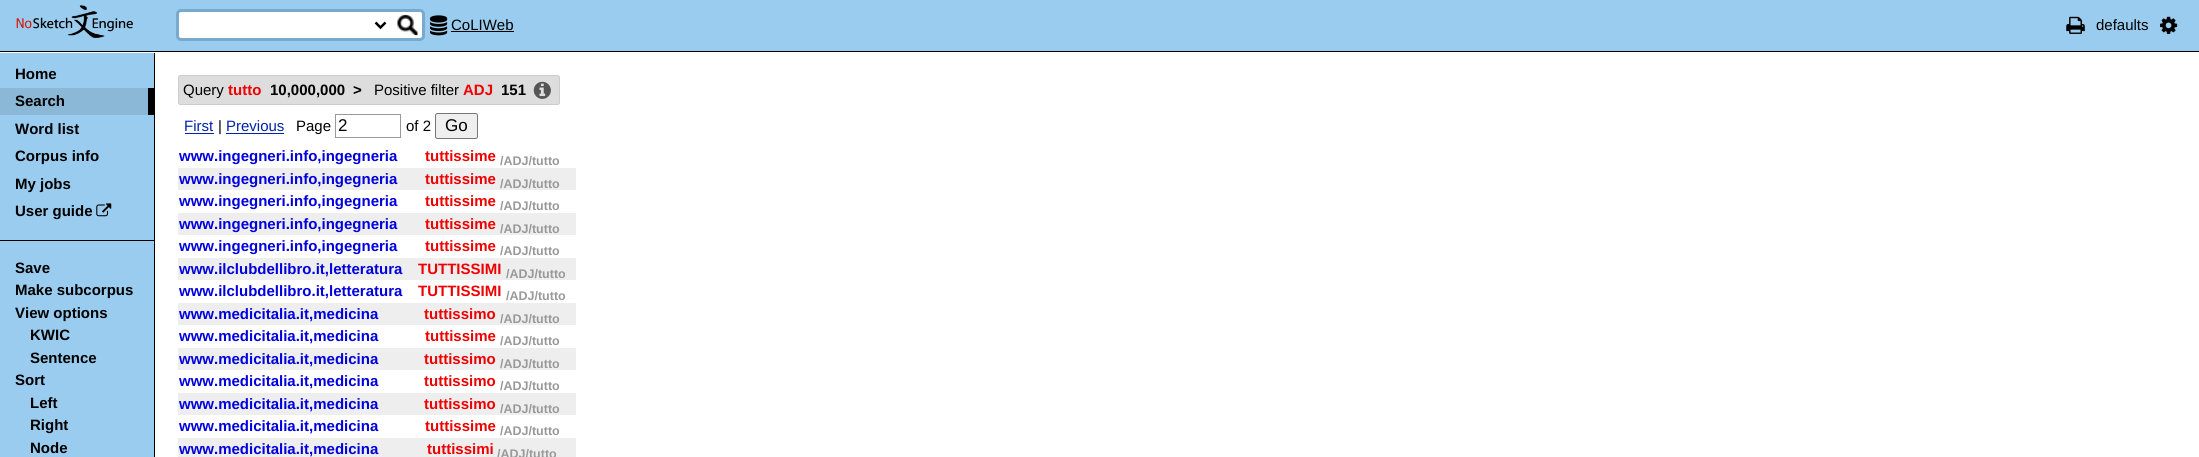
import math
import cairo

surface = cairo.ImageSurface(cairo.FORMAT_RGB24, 2199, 457)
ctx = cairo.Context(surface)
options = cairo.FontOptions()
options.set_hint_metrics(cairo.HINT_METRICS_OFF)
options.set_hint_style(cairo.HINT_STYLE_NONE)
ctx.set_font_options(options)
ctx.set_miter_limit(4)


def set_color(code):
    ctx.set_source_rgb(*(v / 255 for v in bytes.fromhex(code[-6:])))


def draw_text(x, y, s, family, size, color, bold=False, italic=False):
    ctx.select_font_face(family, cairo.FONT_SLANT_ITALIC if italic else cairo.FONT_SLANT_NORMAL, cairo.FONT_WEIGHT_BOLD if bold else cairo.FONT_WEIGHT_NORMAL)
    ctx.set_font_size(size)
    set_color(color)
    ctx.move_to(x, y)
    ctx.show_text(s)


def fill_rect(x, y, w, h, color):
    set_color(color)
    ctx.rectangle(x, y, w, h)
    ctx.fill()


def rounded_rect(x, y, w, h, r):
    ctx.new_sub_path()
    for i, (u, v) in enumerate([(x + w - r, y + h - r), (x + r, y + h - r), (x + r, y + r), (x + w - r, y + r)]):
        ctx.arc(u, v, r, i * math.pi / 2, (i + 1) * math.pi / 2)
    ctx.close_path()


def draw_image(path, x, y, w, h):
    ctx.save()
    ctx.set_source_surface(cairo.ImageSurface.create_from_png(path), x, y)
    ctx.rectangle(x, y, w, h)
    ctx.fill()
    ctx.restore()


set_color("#ffffff")
ctx.paint()
fill_rect(0, 0, 2199, 51, "#99ccee")
fill_rect(0, 51, 2199, 1, "#000000")
draw_image("assets/img1.png", 16, 5, 117, 33)
set_color("#ffffff")
rounded_rect(177.5, 10.5, 246, 29, 3.5)
ctx.fill_preserve()
set_color("#77aacc")
ctx.set_line_width(3)
ctx.stroke()
ctx.new_path()
ctx.move_to(375.5, 22.5)
ctx.line_to(380.5, 27.5)
ctx.line_to(385.5, 22.5)
set_color("#000000")
ctx.set_line_width(2.5)
ctx.stroke()
draw_image("assets/img2.png", 397, 14, 21, 22)
draw_image("assets/img3.png", 430, 15, 18, 21)
draw_text(451, 30, "CoLIWeb", "Liberation Sans", 15, "#000000")
fill_rect(451, 31, 63, 1, "#000000")
draw_image("assets/img4.png", 2066, 16, 19, 18)
draw_text(2096, 30, "defaults", "Liberation Sans", 15, "#000000")
draw_image("assets/img5.png", 2160, 16, 18, 18)
fill_rect(0, 53, 154, 404, "#99ccee")
fill_rect(154, 53, 1, 404, "#000000")
draw_text(15, 79, "Home", "Liberation Sans", 15, "#000000", bold=True)
fill_rect(0, 88, 148, 27, "#8ab8d6")
fill_rect(148, 88, 6, 27, "#000000")
draw_text(15, 106, "Search", "Liberation Sans", 15, "#000000", bold=True)
draw_text(15, 134, "Word list", "Liberation Sans", 15, "#000000", bold=True)
draw_text(15, 161, "Corpus info", "Liberation Sans", 15, "#000000", bold=True)
draw_text(15, 189, "My jobs", "Liberation Sans", 15, "#000000", bold=True)
draw_text(15, 216, "User guide", "Liberation Sans", 15, "#000000", bold=True)
draw_image("assets/img6.png", 96, 203, 16, 14)
fill_rect(0, 240, 154, 1, "#000000")
draw_text(15, 273, "Save", "Liberation Sans", 15, "#000000", bold=True)
draw_text(15, 295, "Make subcorpus", "Liberation Sans", 15, "#000000", bold=True)
draw_text(15, 318, "View options", "Liberation Sans", 15, "#000000", bold=True)
draw_text(30, 340, "KWIC", "Liberation Sans", 15, "#000000", bold=True)
draw_text(30, 363, "Sentence", "Liberation Sans", 15, "#000000", bold=True)
draw_text(15, 385, "Sort", "Liberation Sans", 15, "#000000", bold=True)
draw_text(30, 408, "Left", "Liberation Sans", 15, "#000000", bold=True)
draw_text(30, 430, "Right", "Liberation Sans", 15, "#000000", bold=True)
draw_text(30, 453, "Node", "Liberation Sans", 15, "#000000", bold=True)
set_color("#dddddd")
rounded_rect(178.5, 75.5, 381, 29, 2)
ctx.fill_preserve()
set_color("#cccccc")
ctx.set_line_width(1)
ctx.stroke()
draw_text(183, 95, "Query", "Liberation Sans", 15, "#000000")
draw_text(228, 95, "tutto", "Liberation Sans", 15, "#ee0000", bold=True)
draw_text(270, 95, "10,000,000", "Liberation Sans", 15, "#000000", bold=True)
draw_text(353, 95, ">", "Liberation Sans", 15, "#000000", bold=True)
draw_text(374, 95, "Positive filter", "Liberation Sans", 15, "#000000")
draw_text(463, 95, "ADJ", "Liberation Sans", 15, "#ee0000", bold=True)
draw_text(501, 95, "151", "Liberation Sans", 15, "#000000", bold=True)
draw_image("assets/img7.png", 533, 81, 18, 18)
draw_text(184, 131, "First", "Liberation Sans", 15, "#0022aa")
fill_rect(185, 133, 29, 1, "#0022aa")
draw_text(218, 131, "|", "Liberation Sans", 15, "#000000")
draw_text(226, 131, "Previous", "Liberation Sans", 15, "#0022aa")
fill_rect(226, 133, 58, 1, "#0022aa")
draw_text(296, 131, "Page", "Liberation Sans", 15, "#000000")
ctx.rectangle(335.5, 114.5, 65, 23)
set_color("#999999")
ctx.stroke()
draw_text(338, 131, "2", "Liberation Sans", 17, "#000000")
draw_text(406, 131, "of 2", "Liberation Sans", 15, "#000000")
set_color("#efefef")
rounded_rect(435.5, 113.5, 42, 25, 2)
ctx.fill_preserve()
set_color("#767676")
ctx.stroke()
draw_text(445, 131, "Go", "Liberation Sans", 17, "#000000")
draw_text(179, 161, "www.ingegneri.info,ingegneria", "Liberation Sans", 15, "#0000dd", bold=True)
draw_text(425, 161, "tuttissime", "Liberation Sans", 15, "#ee0000", bold=True)
draw_text(500, 165, "/ADJ/tutto", "Liberation Sans", 12.5, "#999999", bold=True)
fill_rect(178, 168, 398, 22, "#eeeeee")
draw_text(179, 184, "www.ingegneri.info,ingegneria", "Liberation Sans", 15, "#0000dd", bold=True)
draw_text(425, 184, "tuttissime", "Liberation Sans", 15, "#ee0000", bold=True)
draw_text(500, 188, "/ADJ/tutto", "Liberation Sans", 12.5, "#999999", bold=True)
draw_text(179, 206, "www.ingegneri.info,ingegneria", "Liberation Sans", 15, "#0000dd", bold=True)
draw_text(425, 206, "tuttissime", "Liberation Sans", 15, "#ee0000", bold=True)
draw_text(500, 210, "/ADJ/tutto", "Liberation Sans", 12.5, "#999999", bold=True)
fill_rect(178, 213, 398, 22, "#eeeeee")
draw_text(179, 229, "www.ingegneri.info,ingegneria", "Liberation Sans", 15, "#0000dd", bold=True)
draw_text(425, 229, "tuttissime", "Liberation Sans", 15, "#ee0000", bold=True)
draw_text(500, 233, "/ADJ/tutto", "Liberation Sans", 12.5, "#999999", bold=True)
draw_text(179, 251, "www.ingegneri.info,ingegneria", "Liberation Sans", 15, "#0000dd", bold=True)
draw_text(425, 251, "tuttissime", "Liberation Sans", 15, "#ee0000", bold=True)
draw_text(500, 255, "/ADJ/tutto", "Liberation Sans", 12.5, "#999999", bold=True)
fill_rect(178, 258, 398, 22, "#eeeeee")
draw_text(179, 274, "www.ilclubdellibro.it,letteratura", "Liberation Sans", 15, "#0000dd", bold=True)
draw_text(418, 274, "TUTTISSIMI", "Liberation Sans", 15, "#ee0000", bold=True)
draw_text(506, 278, "/ADJ/tutto", "Liberation Sans", 12.5, "#999999", bold=True)
draw_text(179, 296, "www.ilclubdellibro.it,letteratura", "Liberation Sans", 15, "#0000dd", bold=True)
draw_text(418, 296, "TUTTISSIMI", "Liberation Sans", 15, "#ee0000", bold=True)
draw_text(506, 300, "/ADJ/tutto", "Liberation Sans", 12.5, "#999999", bold=True)
fill_rect(178, 303, 398, 22, "#eeeeee")
draw_text(179, 319, "www.medicitalia.it,medicina", "Liberation Sans", 15, "#0000dd", bold=True)
draw_text(424, 319, "tuttissimo", "Liberation Sans", 15, "#ee0000", bold=True)
draw_text(500, 323, "/ADJ/tutto", "Liberation Sans", 12.5, "#999999", bold=True)
draw_text(179, 341, "www.medicitalia.it,medicina", "Liberation Sans", 15, "#0000dd", bold=True)
draw_text(425, 341, "tuttissime", "Liberation Sans", 15, "#ee0000", bold=True)
draw_text(500, 345, "/ADJ/tutto", "Liberation Sans", 12.5, "#999999", bold=True)
fill_rect(178, 348, 398, 22, "#eeeeee")
draw_text(179, 364, "www.medicitalia.it,medicina", "Liberation Sans", 15, "#0000dd", bold=True)
draw_text(424, 364, "tuttissimo", "Liberation Sans", 15, "#ee0000", bold=True)
draw_text(500, 368, "/ADJ/tutto", "Liberation Sans", 12.5, "#999999", bold=True)
draw_text(179, 386, "www.medicitalia.it,medicina", "Liberation Sans", 15, "#0000dd", bold=True)
draw_text(424, 386, "tuttissimo", "Liberation Sans", 15, "#ee0000", bold=True)
draw_text(500, 390, "/ADJ/tutto", "Liberation Sans", 12.5, "#999999", bold=True)
fill_rect(178, 393, 398, 22, "#eeeeee")
draw_text(179, 409, "www.medicitalia.it,medicina", "Liberation Sans", 15, "#0000dd", bold=True)
draw_text(424, 409, "tuttissimo", "Liberation Sans", 15, "#ee0000", bold=True)
draw_text(500, 413, "/ADJ/tutto", "Liberation Sans", 12.5, "#999999", bold=True)
draw_text(179, 431, "www.medicitalia.it,medicina", "Liberation Sans", 15, "#0000dd", bold=True)
draw_text(425, 431, "tuttissime", "Liberation Sans", 15, "#ee0000", bold=True)
draw_text(500, 435, "/ADJ/tutto", "Liberation Sans", 12.5, "#999999", bold=True)
fill_rect(178, 438, 398, 19, "#eeeeee")
draw_text(179, 454, "www.medicitalia.it,medicina", "Liberation Sans", 15, "#0000dd", bold=True)
draw_text(427, 454, "tuttissimi", "Liberation Sans", 15, "#ee0000", bold=True)
draw_text(497, 458, "/ADJ/tutto", "Liberation Sans", 12.5, "#999999", bold=True)
surface.write_to_png("output.png")
